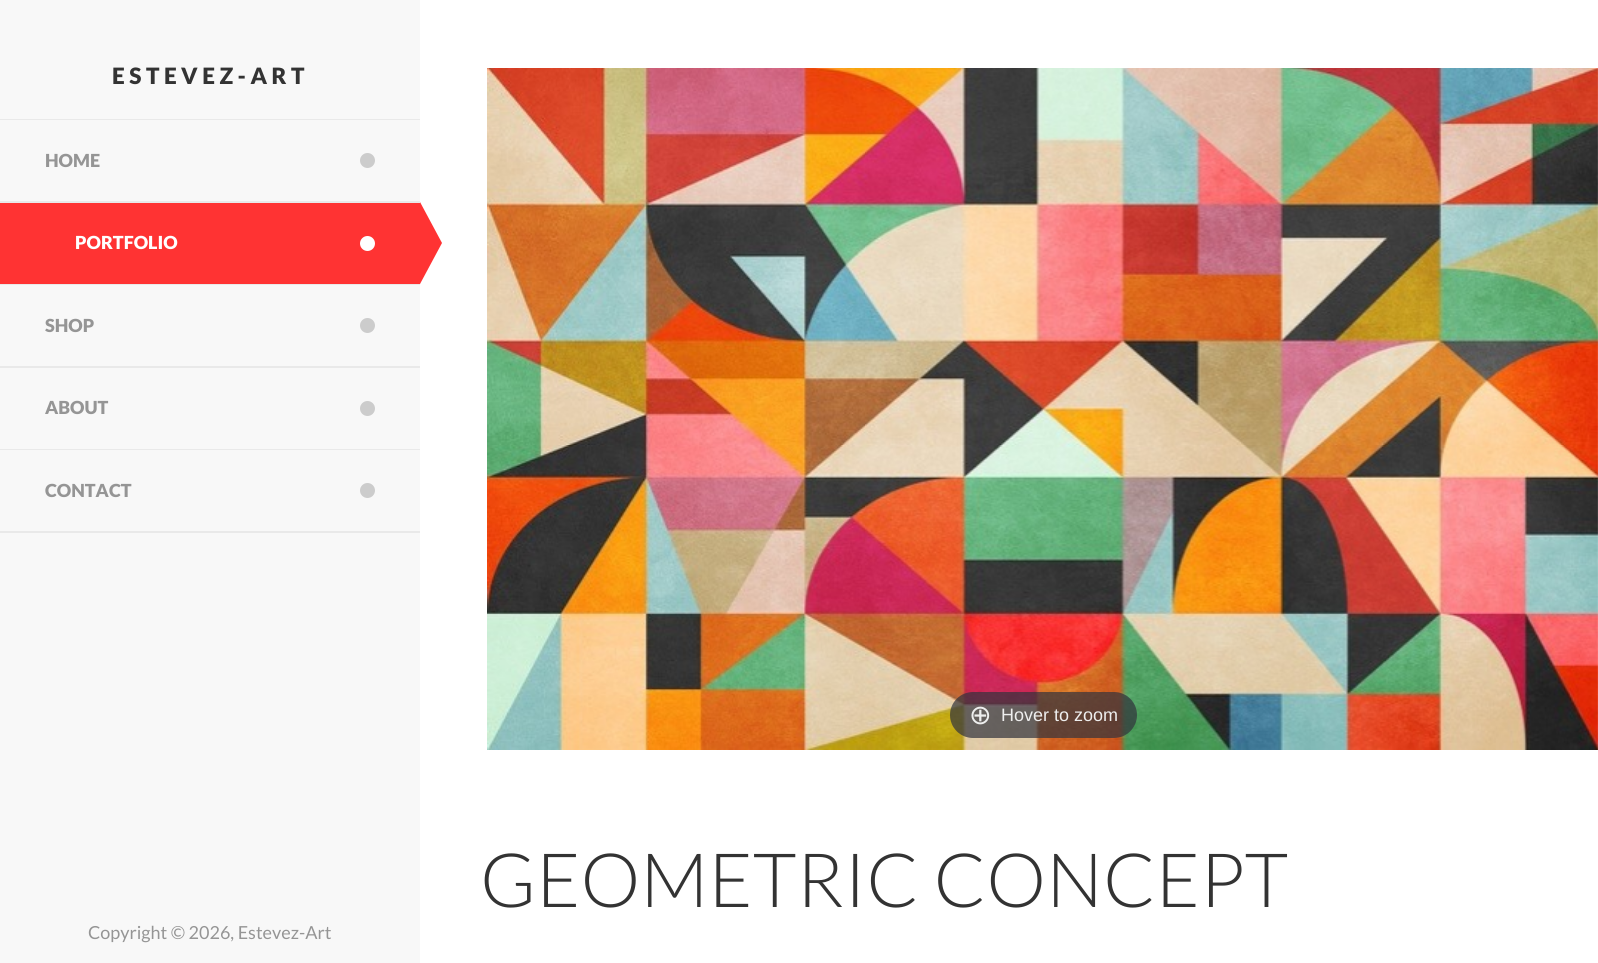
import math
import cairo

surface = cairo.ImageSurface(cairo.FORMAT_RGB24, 1598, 963)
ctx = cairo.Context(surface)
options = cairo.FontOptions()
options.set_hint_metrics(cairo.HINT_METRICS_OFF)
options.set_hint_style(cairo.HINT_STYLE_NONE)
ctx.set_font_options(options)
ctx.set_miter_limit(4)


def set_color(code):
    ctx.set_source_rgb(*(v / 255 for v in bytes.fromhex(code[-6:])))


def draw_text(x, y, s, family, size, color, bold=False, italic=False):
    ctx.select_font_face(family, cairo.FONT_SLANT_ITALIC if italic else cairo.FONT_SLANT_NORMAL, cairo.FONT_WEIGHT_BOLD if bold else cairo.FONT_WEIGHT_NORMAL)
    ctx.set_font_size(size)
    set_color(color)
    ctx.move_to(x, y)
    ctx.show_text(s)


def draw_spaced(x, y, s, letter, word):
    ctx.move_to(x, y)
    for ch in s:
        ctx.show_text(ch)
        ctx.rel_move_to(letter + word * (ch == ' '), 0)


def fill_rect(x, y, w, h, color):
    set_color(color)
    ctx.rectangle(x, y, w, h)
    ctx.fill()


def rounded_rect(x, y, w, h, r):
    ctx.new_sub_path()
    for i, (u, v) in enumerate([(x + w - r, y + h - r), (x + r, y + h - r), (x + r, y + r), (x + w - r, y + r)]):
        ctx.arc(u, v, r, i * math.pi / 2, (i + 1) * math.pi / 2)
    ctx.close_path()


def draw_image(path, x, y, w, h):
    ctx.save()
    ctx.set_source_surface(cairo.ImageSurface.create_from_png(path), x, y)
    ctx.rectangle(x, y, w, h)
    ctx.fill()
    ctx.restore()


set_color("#f8f8f8")
ctx.paint()
fill_rect(0, 119, 420, 1, "#e9e9e9")
ctx.select_font_face("Lato Black")
ctx.set_font_size(22.5)
set_color("#333333")
draw_spaced(112, 84, "ESTEVEZ-ART", 4.5, 0)
fill_rect(0, 201, 420, 2, "#e9e9e9")
draw_text(45, 167, "HOME", "Lato Black", 18, "#959595")
set_color("#cccccc")
ctx.new_path()
ctx.arc(367.5, 160.5, 7.5, 0, 2 * math.pi)
ctx.fill()
fill_rect(0, 203, 420, 81, "#ff3333")
fill_rect(0, 284, 420, 1, "#e9e9e9")
draw_text(75, 249, "PORTFOLIO", "Lato Black", 18, "#ffffff")
ctx.new_path()
ctx.arc(367.5, 243.5, 7.5, 0, 2 * math.pi)
ctx.fill()
fill_rect(420, 0, 1178, 963, "#ffffff")
set_color("#ff3333")
ctx.new_path()
ctx.move_to(420, 284)
ctx.line_to(420, 202)
ctx.line_to(442, 243)
ctx.close_path()
ctx.fill()
fill_rect(0, 366, 420, 2, "#e9e9e9")
draw_text(45, 332, "SHOP", "Lato Black", 18, "#959595")
set_color("#cccccc")
ctx.new_path()
ctx.arc(367.5, 325.5, 7.5, 0, 2 * math.pi)
ctx.fill()
fill_rect(0, 449, 420, 1, "#e9e9e9")
draw_text(45, 414, "ABOUT", "Lato Black", 18, "#959595")
set_color("#cccccc")
ctx.new_path()
ctx.arc(367.5, 408.5, 7.5, 0, 2 * math.pi)
ctx.fill()
fill_rect(0, 531, 420, 2, "#e9e9e9")
draw_text(45, 497, "CONTACT", "Lato Black", 18, "#959595")
set_color("#cccccc")
ctx.new_path()
ctx.arc(367.5, 490.5, 7.5, 0, 2 * math.pi)
ctx.fill()
draw_text(88, 939, "Copyright © 2026, Estevez-Art", "Lato", 18, "#959595")
draw_image("assets/img1.png", 487, 68, 1111, 682)
ctx.set_source_rgba(0.192, 0.2, 0.239, 0.7)
rounded_rect(950, 692, 187, 46, 23)
ctx.fill()
draw_text(969, 724, "⊕", "DejaVu Sans", 27, "#eeeeee")
draw_text(1001, 721, "Hover to zoom", "Liberation Sans", 18, "#eeeeee")
draw_text(480, 907, "GEOMETRIC CONCEPT", "Lato Light", 75, "#333333")
surface.write_to_png("output.png")
